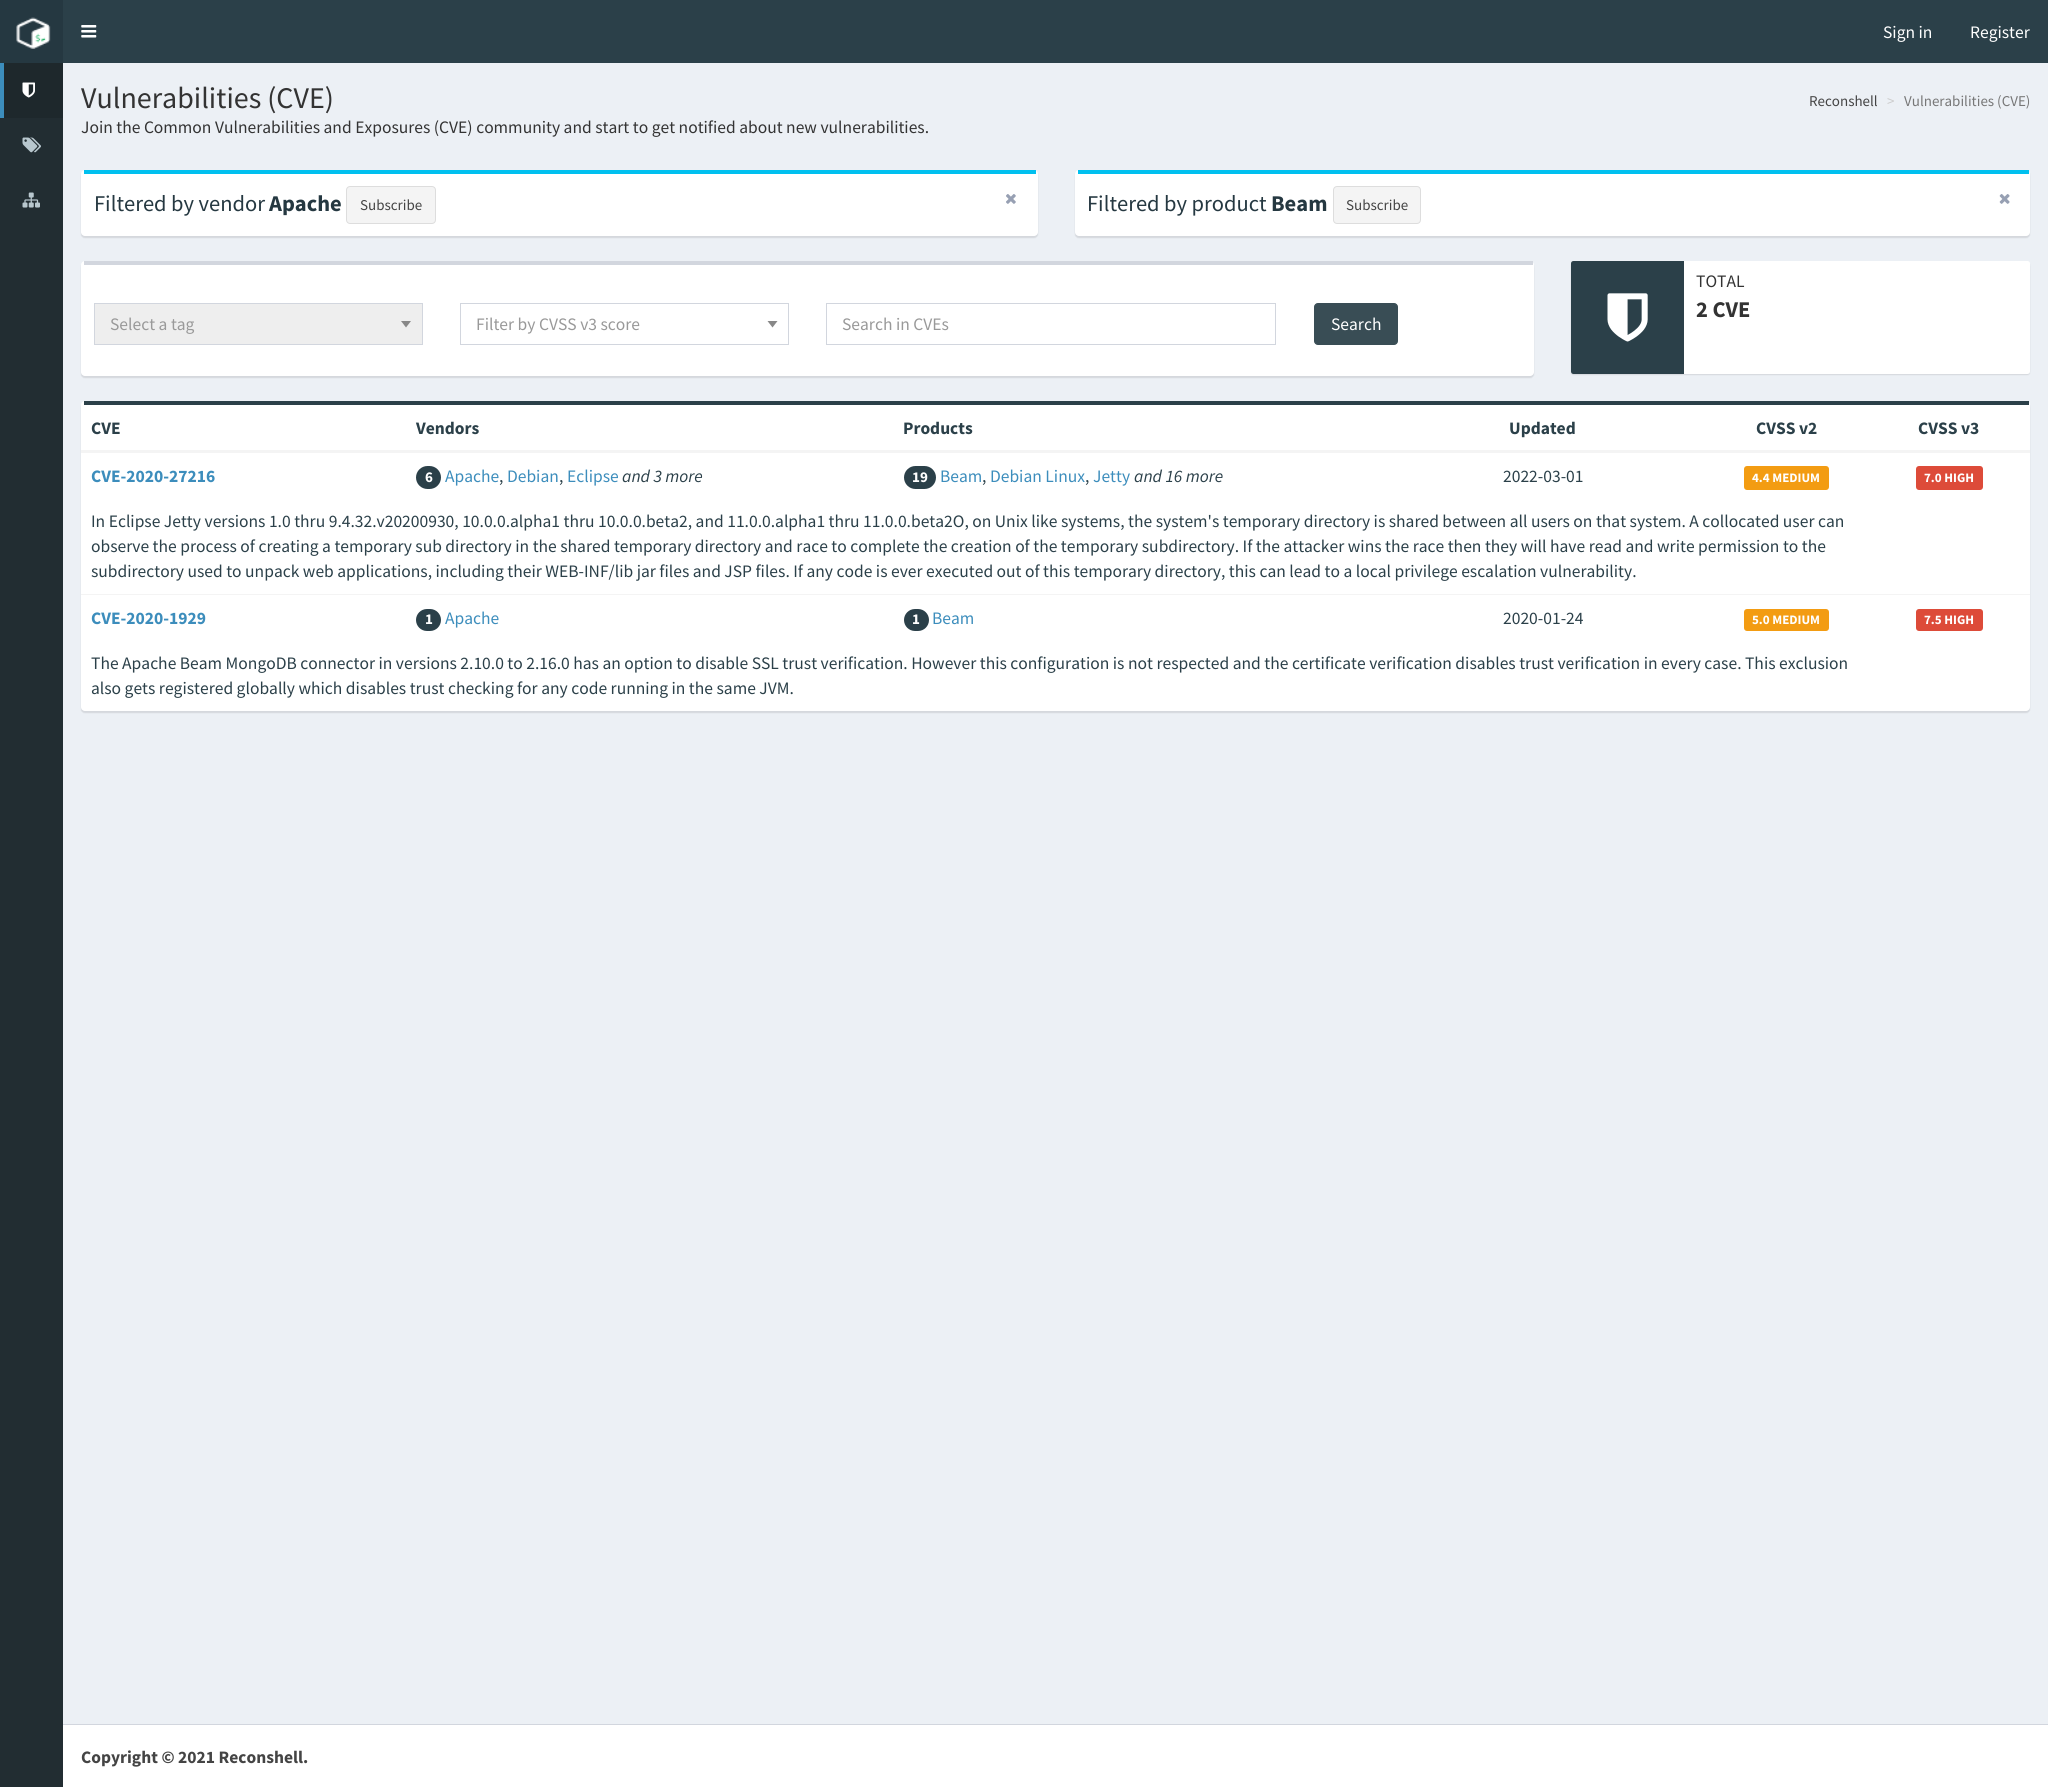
import math
import cairo

surface = cairo.ImageSurface(cairo.FORMAT_RGB24, 2048, 1787)
ctx = cairo.Context(surface)
options = cairo.FontOptions()
options.set_hint_metrics(cairo.HINT_METRICS_OFF)
options.set_hint_style(cairo.HINT_STYLE_NONE)
ctx.set_font_options(options)
ctx.set_miter_limit(4)


def set_color(code):
    ctx.set_source_rgb(*(v / 255 for v in bytes.fromhex(code[-6:])))


def draw_text(x, y, s, family, size, color, bold=False, italic=False):
    ctx.select_font_face(family, cairo.FONT_SLANT_ITALIC if italic else cairo.FONT_SLANT_NORMAL, cairo.FONT_WEIGHT_BOLD if bold else cairo.FONT_WEIGHT_NORMAL)
    ctx.set_font_size(size)
    set_color(color)
    ctx.move_to(x, y)
    ctx.show_text(s)


def fill_rect(x, y, w, h, color):
    set_color(color)
    ctx.rectangle(x, y, w, h)
    ctx.fill()


def rounded_rect(x, y, w, h, r):
    ctx.new_sub_path()
    for i, (u, v) in enumerate([(x + w - r, y + h - r), (x + r, y + h - r), (x + r, y + r), (x + w - r, y + r)]):
        ctx.arc(u, v, r, i * math.pi / 2, (i + 1) * math.pi / 2)
    ctx.close_path()


def draw_shadow(x, y, w, h, r, blur, alpha):
    ctx.push_group_with_content(cairo.CONTENT_ALPHA)
    ctx.set_operator(cairo.OPERATOR_SOURCE)
    for i in range(15, -16, -2):
        e = blur * i / 6
        if min(w, h) + 2 * e > 0:
            ctx.set_source_rgba(0, 0, 0, alpha * math.erfc((i - 1) / 8.5) / 2)
            rounded_rect(x - e, y - e, w + 2 * e, h + 2 * e, max(0, min(r + e + blur * .6, min(w, h) / 2 + e)))
            ctx.fill()
    ctx.mask(ctx.pop_group())


def draw_image(path, x, y, w, h):
    ctx.save()
    ctx.set_source_surface(cairo.ImageSurface.create_from_png(path), x, y)
    ctx.rectangle(x, y, w, h)
    ctx.fill()
    ctx.restore()


set_color("#222d32")
ctx.paint()
fill_rect(0, 0, 63, 63, "#253841")
draw_image("assets/img1.png", 16, 17, 35, 32)
fill_rect(63, 0, 1985, 63, "#2b4049")
draw_image("assets/img2.png", 81, 25, 16, 13)
draw_text(1883, 38, "Sign in", "Source Sans Pro", 17.5, "#ffffff")
draw_text(1970, 38, "Register", "Source Sans Pro", 17.5, "#ffffff")
fill_rect(4, 63, 59, 55, "#1e282c")
fill_rect(0, 63, 4, 55, "#3c8dbc")
draw_image("assets/img3.png", 22, 82, 13, 16)
draw_image("assets/img4.png", 22, 137, 19, 16)
draw_image("assets/img5.png", 22, 192, 18, 16)
fill_rect(63, 63, 1985, 1661, "#ecf0f5")
draw_text(81, 108, "Vulnerabilities (CVE)", "Source Sans Pro", 30, "#333333")
draw_text(1809, 106, "Reconshell", "Source Sans Pro", 15, "#444444")
draw_text(1887, 106, ">", "Source Sans Pro", 15, "#cccccc")
draw_text(1904, 106, "Vulnerabilities (CVE)", "Source Sans Pro", 15, "#777777")
draw_text(81, 133, "Join the Common Vulnerabilities and Exposures (CVE) community and start to get notified about new vulnerabilities.", "Source Sans Pro", 17.5, "#333333")
set_color("#000000")
draw_shadow(81, 171, 957, 67, 4, 0.5, 0.1)
set_color("#ffffff")
rounded_rect(81, 170, 957, 66, 4)
ctx.fill()
fill_rect(84, 170, 952, 4, "#00c0ef")
draw_text(94, 211, "Filtered by vendor", "Source Sans Pro", 22.5, "#253841")
draw_text(269, 211, "Apache", "Source Sans Pro", 22.5, "#253841", bold=True)
set_color("#f4f4f4")
rounded_rect(346.5, 186.5, 89, 37, 3.5)
ctx.fill_preserve()
set_color("#dddddd")
ctx.set_line_width(1)
ctx.stroke()
draw_text(360, 210, "Subscribe", "Source Sans Pro", 15, "#444444")
draw_image("assets/img6.png", 1006, 194, 10, 10)
set_color("#000000")
draw_shadow(1075, 171, 955, 67, 4, 0.5, 0.1)
set_color("#ffffff")
rounded_rect(1075, 170, 955, 66, 4)
ctx.fill()
fill_rect(1078, 170, 951, 4, "#00c0ef")
draw_text(1087, 211, "Filtered by product", "Source Sans Pro", 22.5, "#253841")
draw_text(1271, 211, "Beam", "Source Sans Pro", 22.5, "#253841", bold=True)
set_color("#f4f4f4")
rounded_rect(1333.5, 186.5, 87, 37, 3.5)
ctx.fill_preserve()
set_color("#dddddd")
ctx.stroke()
draw_text(1346, 210, "Subscribe", "Source Sans Pro", 15, "#444444")
draw_image("assets/img7.png", 1999, 194, 11, 10)
set_color("#000000")
draw_shadow(1571, 263, 459, 112, 2.5, 0.5, 0.1)
set_color("#ffffff")
rounded_rect(1571, 261, 459, 113, 2.5)
ctx.fill()
set_color("#2b4049")
ctx.new_path()
ctx.move_to(1573.5, 261)
ctx.line_to(1684, 261)
ctx.line_to(1684, 374)
ctx.line_to(1573.5, 374)
ctx.curve_to(1572, 374, 1571, 373, 1571, 371.5)
ctx.line_to(1571, 263.5)
ctx.curve_to(1571, 262, 1572, 261, 1573.5, 261)
ctx.close_path()
ctx.fill()
draw_image("assets/img8.png", 1607, 293, 41, 49)
draw_text(1696, 287, "TOTAL", "Source Sans Pro", 17.5, "#333333")
draw_text(1696, 317, "2 CVE", "Source Sans Pro", 22.5, "#333333", bold=True)
set_color("#000000")
draw_shadow(81, 263, 1453, 115, 4, 0.5, 0.1)
set_color("#ffffff")
rounded_rect(81, 261, 1453, 115, 4)
ctx.fill()
fill_rect(84, 261, 1449, 4, "#d2d6de")
set_color("#eeeeee")
ctx.rectangle(94.5, 303.5, 328, 41)
ctx.fill_preserve()
set_color("#d2d6de")
ctx.stroke()
draw_text(110, 330, "Select a tag", "Source Sans Pro", 17.5, "#999999")
set_color("#888888")
ctx.new_path()
ctx.move_to(401, 321)
ctx.line_to(411, 321)
ctx.line_to(406, 327.5)
ctx.close_path()
ctx.fill()
ctx.rectangle(460.5, 303.5, 328, 41)
set_color("#d2d6de")
ctx.stroke()
draw_text(476, 330, "Filter by CVSS v3 score", "Source Sans Pro", 17.5, "#999999")
set_color("#888888")
ctx.new_path()
ctx.move_to(767.5, 321)
ctx.line_to(777.5, 321)
ctx.line_to(772.5, 327.5)
ctx.close_path()
ctx.fill()
ctx.rectangle(826.5, 303.5, 449, 41)
set_color("#d2d6de")
ctx.stroke()
draw_text(842, 330, "Search in CVEs", "Source Sans Pro", 17.5, "#999999")
set_color("#394d55")
rounded_rect(1314.5, 303.5, 83, 41, 3.5)
ctx.fill_preserve()
ctx.stroke()
draw_text(1331, 330, "Search", "Source Sans Pro", 17.5, "#ffffff")
set_color("#000000")
draw_shadow(81, 403, 1949, 310, 4, 0.5, 0.1)
set_color("#ffffff")
rounded_rect(81, 401, 1949, 310, 4)
ctx.fill()
fill_rect(84, 401, 1945, 4, "#2b4049")
draw_text(91, 434, "CVE", "Source Sans Pro", 17.5, "#2b4049", bold=True)
draw_text(416, 434, "Vendors", "Source Sans Pro", 17.5, "#2b4049", bold=True)
draw_text(903, 434, "Products", "Source Sans Pro", 17.5, "#2b4049", bold=True)
draw_text(1509, 434, "Updated", "Source Sans Pro", 17.5, "#2b4049", bold=True)
draw_text(1756, 434, "CVSS v2", "Source Sans Pro", 17.5, "#2b4049", bold=True)
fill_rect(81, 450, 1949, 3, "#f4f4f4")
draw_text(1918, 434, "CVSS v3", "Source Sans Pro", 17.5, "#2b4049", bold=True)
draw_text(91, 482, "CVE-2020-27216", "Source Sans Pro", 17.5, "#3c8dbc", bold=True)
set_color("#2b4049")
rounded_rect(416, 466, 25, 23, 11.5)
ctx.fill()
draw_text(425, 482, "6", "Source Sans Pro", 15, "#ffffff", bold=True)
draw_text(445, 482, "Apache", "Source Sans Pro", 17.5, "#3c8dbc")
draw_text(499, 482, ",", "Source Sans Pro", 17.5, "#2b4049")
draw_text(507, 482, "Debian", "Source Sans Pro", 17.5, "#3c8dbc")
draw_text(559, 482, ",", "Source Sans Pro", 17.5, "#2b4049")
draw_text(567, 482, "Eclipse", "Source Sans Pro", 17.5, "#3c8dbc")
draw_text(622, 482, "and 3 more", "Source Sans Pro", 17.5, "#2b4049", italic=True)
rounded_rect(904, 466, 32, 23, 11.5)
ctx.fill()
draw_text(912, 482, "19", "Source Sans Pro", 15, "#ffffff", bold=True)
draw_text(940, 482, "Beam", "Source Sans Pro", 17.5, "#3c8dbc")
draw_text(982, 482, ",", "Source Sans Pro", 17.5, "#2b4049")
draw_text(990, 482, "Debian Linux", "Source Sans Pro", 17.5, "#3c8dbc")
draw_text(1085, 482, ",", "Source Sans Pro", 17.5, "#2b4049")
draw_text(1093, 482, "Jetty", "Source Sans Pro", 17.5, "#3c8dbc")
draw_text(1134, 482, "and 16 more", "Source Sans Pro", 17.5, "#2b4049", italic=True)
draw_text(1503, 482, "2022-03-01", "Source Sans Pro", 17.5, "#2b4049")
set_color("#f39c12")
rounded_rect(1744, 466, 85, 24, 3)
ctx.fill()
draw_text(1752, 482, "4.4 MEDIUM", "Source Sans Pro", 13, "#ffffff", bold=True)
set_color("#dd4b39")
rounded_rect(1916, 466, 67, 24, 3)
ctx.fill()
draw_text(1924, 482, "7.0 HIGH", "Source Sans Pro", 13, "#ffffff", bold=True)
draw_text(91, 527, "In Eclipse Jetty versions 1.0 thru 9.4.32.v20200930, 10.0.0.alpha1 thru 10.0.0.beta2, and 11.0.0.alpha1 thru 11.0.0.beta2O, on Unix like systems, the system's temporary directory is shared between all users on that system. A collocated user can", "Source Sans Pro", 17.5, "#2b4049")
draw_text(91, 552, "observe the process of creating a temporary sub directory in the shared temporary directory and race to complete the creation of the temporary subdirectory. If the attacker wins the race then they will have read and write permission to the", "Source Sans Pro", 17.5, "#2b4049")
draw_text(91, 577, "subdirectory used to unpack web applications, including their WEB-INF/lib jar files and JSP files. If any code is ever executed out of this temporary directory, this can lead to a local privilege escalation vulnerability.", "Source Sans Pro", 17.5, "#2b4049")
draw_text(91, 624, "CVE-2020-1929", "Source Sans Pro", 17.5, "#3c8dbc", bold=True)
set_color("#2b4049")
rounded_rect(416, 609, 25, 22, 11)
ctx.fill()
draw_text(425, 624, "1", "Source Sans Pro", 15, "#ffffff", bold=True)
draw_text(445, 624, "Apache", "Source Sans Pro", 17.5, "#3c8dbc")
set_color("#2b4049")
rounded_rect(904, 609, 25, 22, 11)
ctx.fill()
draw_text(912, 624, "1", "Source Sans Pro", 15, "#ffffff", bold=True)
draw_text(932, 624, "Beam", "Source Sans Pro", 17.5, "#3c8dbc")
draw_text(1503, 624, "2020-01-24", "Source Sans Pro", 17.5, "#2b4049")
set_color("#f39c12")
rounded_rect(1744, 609, 85, 22, 3)
ctx.fill()
draw_text(1752, 624, "5.0 MEDIUM", "Source Sans Pro", 13, "#ffffff", bold=True)
fill_rect(81, 594, 1949, 1, "#f4f4f4")
set_color("#dd4b39")
rounded_rect(1916, 609, 67, 22, 3)
ctx.fill()
draw_text(1924, 624, "7.5 HIGH", "Source Sans Pro", 13, "#ffffff", bold=True)
draw_text(91, 669, "The Apache Beam MongoDB connector in versions 2.10.0 to 2.16.0 has an option to disable SSL trust verification. However this configuration is not respected and the certificate verification disables trust verification in every case. This exclusion", "Source Sans Pro", 17.5, "#2b4049")
draw_text(91, 694, "also gets registered globally which disables trust checking for any code running in the same JVM.", "Source Sans Pro", 17.5, "#2b4049")
fill_rect(63, 1725, 1985, 62, "#ffffff")
fill_rect(63, 1724, 1985, 1, "#d2d6de")
draw_text(81, 1763, "Copyright © 2021 Reconshell.", "Source Sans Pro", 17.5, "#444444", bold=True)
surface.write_to_png("output.png")
